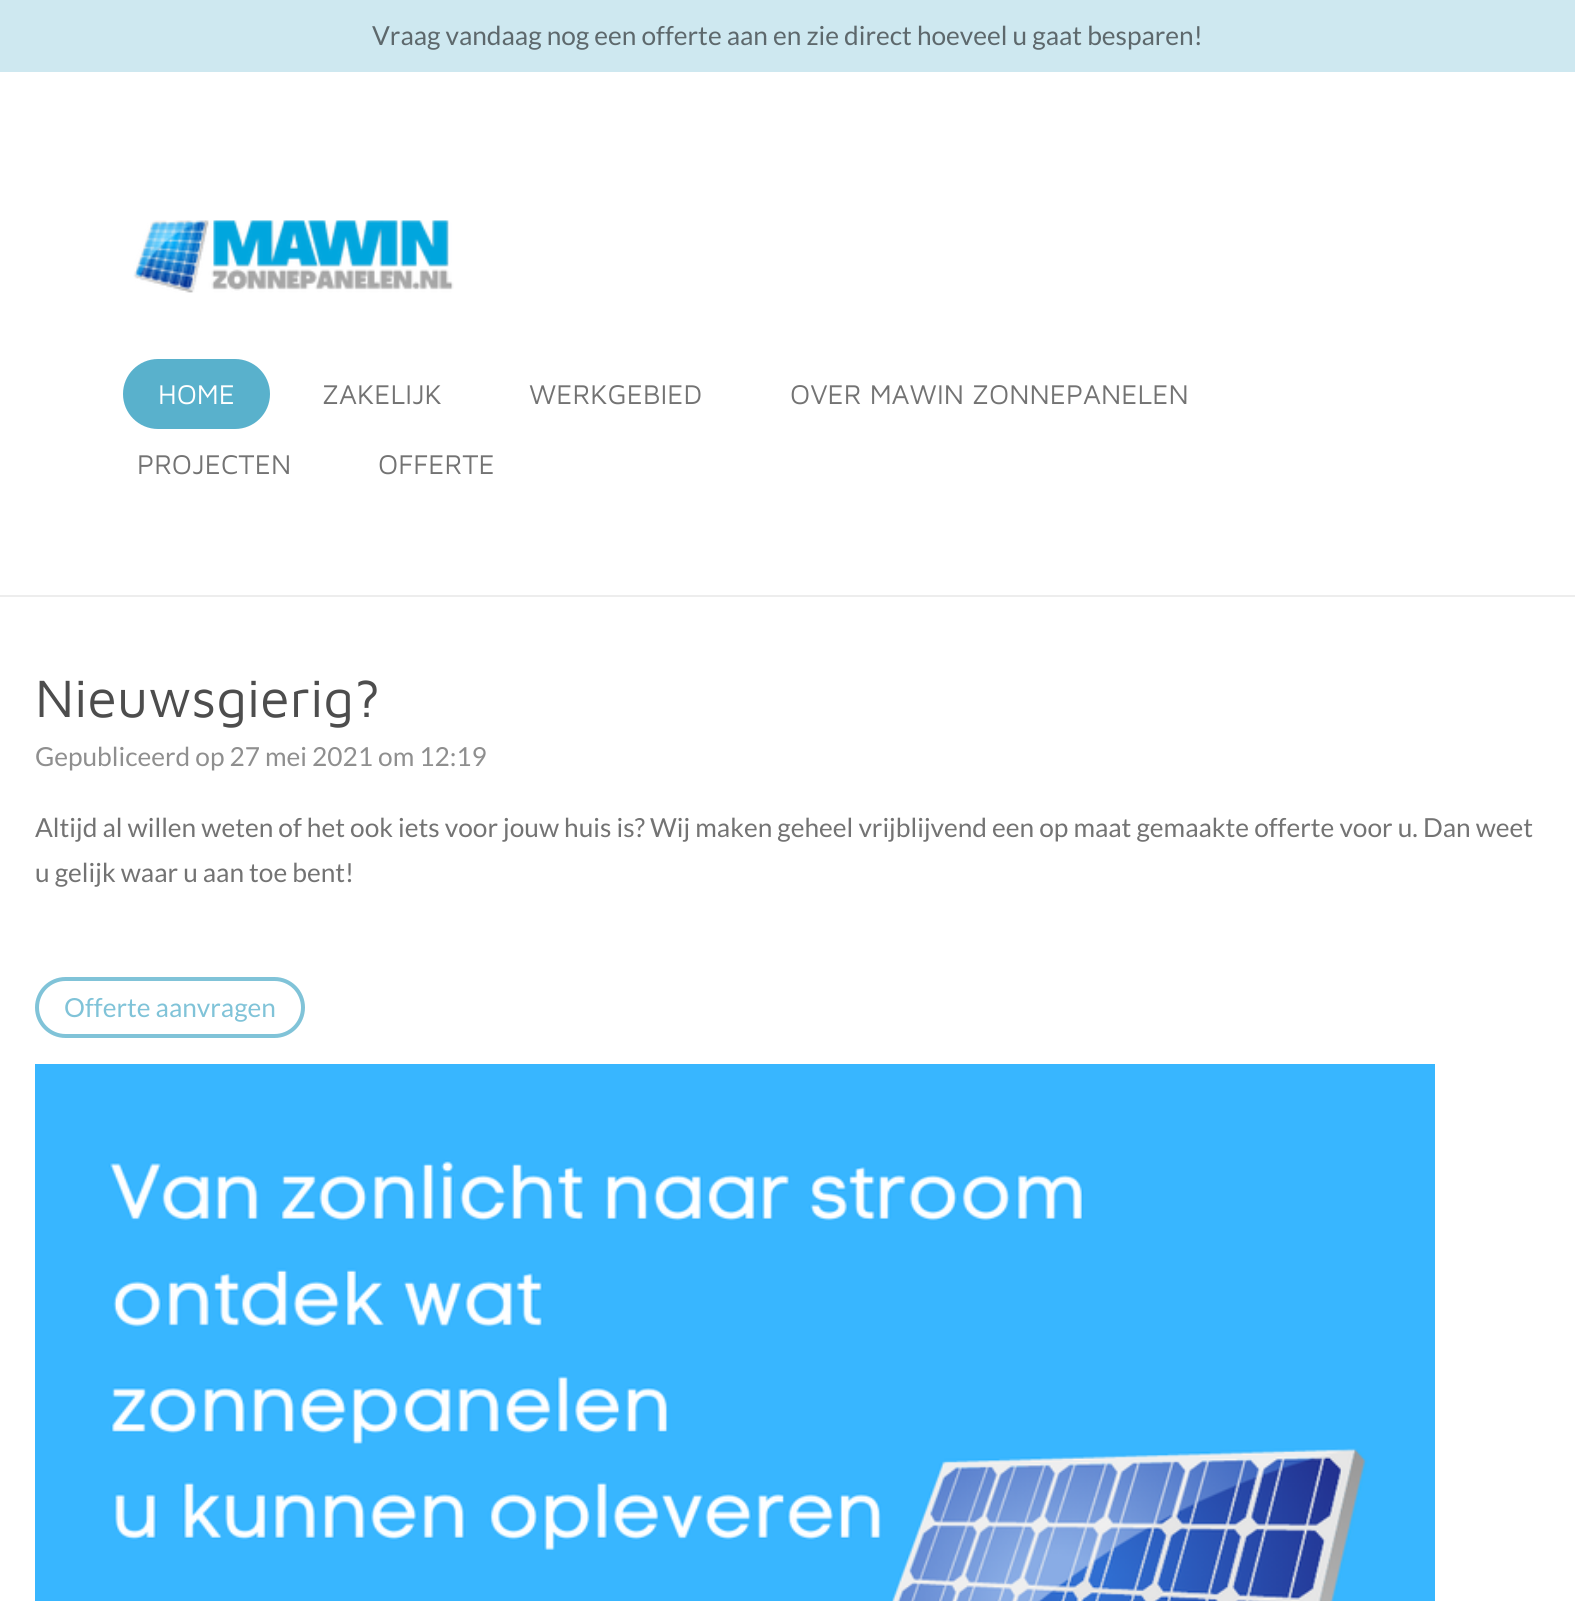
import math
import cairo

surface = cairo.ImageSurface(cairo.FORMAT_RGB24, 1575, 1601)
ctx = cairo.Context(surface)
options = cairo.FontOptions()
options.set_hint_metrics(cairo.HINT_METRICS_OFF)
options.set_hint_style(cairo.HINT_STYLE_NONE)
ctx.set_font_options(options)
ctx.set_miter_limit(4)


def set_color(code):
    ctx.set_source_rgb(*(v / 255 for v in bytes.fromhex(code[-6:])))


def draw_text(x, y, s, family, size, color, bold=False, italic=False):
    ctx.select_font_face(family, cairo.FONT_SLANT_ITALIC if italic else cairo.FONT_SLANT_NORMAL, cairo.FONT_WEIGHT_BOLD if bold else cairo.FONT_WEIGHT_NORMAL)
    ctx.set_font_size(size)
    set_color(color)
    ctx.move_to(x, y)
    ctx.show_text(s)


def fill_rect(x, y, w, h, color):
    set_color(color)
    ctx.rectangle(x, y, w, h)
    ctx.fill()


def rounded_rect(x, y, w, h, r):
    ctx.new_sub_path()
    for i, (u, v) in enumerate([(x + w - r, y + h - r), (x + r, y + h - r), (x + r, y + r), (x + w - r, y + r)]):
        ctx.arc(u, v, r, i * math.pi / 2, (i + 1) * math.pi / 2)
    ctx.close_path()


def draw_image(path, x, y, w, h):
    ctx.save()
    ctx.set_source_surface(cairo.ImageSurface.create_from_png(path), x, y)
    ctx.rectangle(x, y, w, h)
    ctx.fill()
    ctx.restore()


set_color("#ffffff")
ctx.paint()
fill_rect(0, 0, 1575, 72, "#cee8f0")
draw_text(372, 45, "Vraag vandaag nog een offerte aan en zie direct hoeveel u gaat besparen!", "Lato", 26.25, "#5d686c")
fill_rect(0, 595, 1575, 2, "#ededed")
draw_image("assets/img1.png", 133, 220, 321, 73)
set_color("#59b1cc")
rounded_rect(123, 359, 147, 70, 35)
ctx.fill()
draw_text(158, 404, "HOME", "Maven Pro", 28, "#ffffff")
draw_text(322, 404, "ZAKELIJK", "Maven Pro", 28, "#737373")
draw_text(529, 404, "WERKGEBIED", "Maven Pro", 28, "#737373")
draw_text(790, 404, "OVER MAWIN ZONNEPANELEN", "Maven Pro", 28, "#737373")
draw_text(137, 474, "PROJECTEN", "Maven Pro", 28, "#737373")
draw_text(378, 474, "OFFERTE", "Maven Pro", 28, "#737373")
draw_text(35, 717, "Nieuwsgierig?", "Maven Pro", 54.25, "#4d4d4d")
draw_text(35, 766, "Gepubliceerd op 27 mei 2021 om 12:19", "Lato", 26.25, "#8f8f8f")
draw_text(35, 837, "Altijd al willen weten of het ook iets voor jouw huis is? Wij maken geheel vrijblijvend een op maat gemaakte offerte voor u. Dan weet", "Lato", 26.25, "#737373")
draw_text(35, 882, "u gelijk waar u aan toe bent!", "Lato", 26.25, "#737373")
rounded_rect(37, 979, 266, 57, 28.5)
set_color("#80c3d8")
ctx.set_line_width(4)
ctx.stroke()
draw_text(64, 1017, "Offerte aanvragen", "Lato", 26.25, "#80c3d8")
draw_image("assets/img2.png", 35, 1064, 1400, 537)
surface.write_to_png("output.png")
